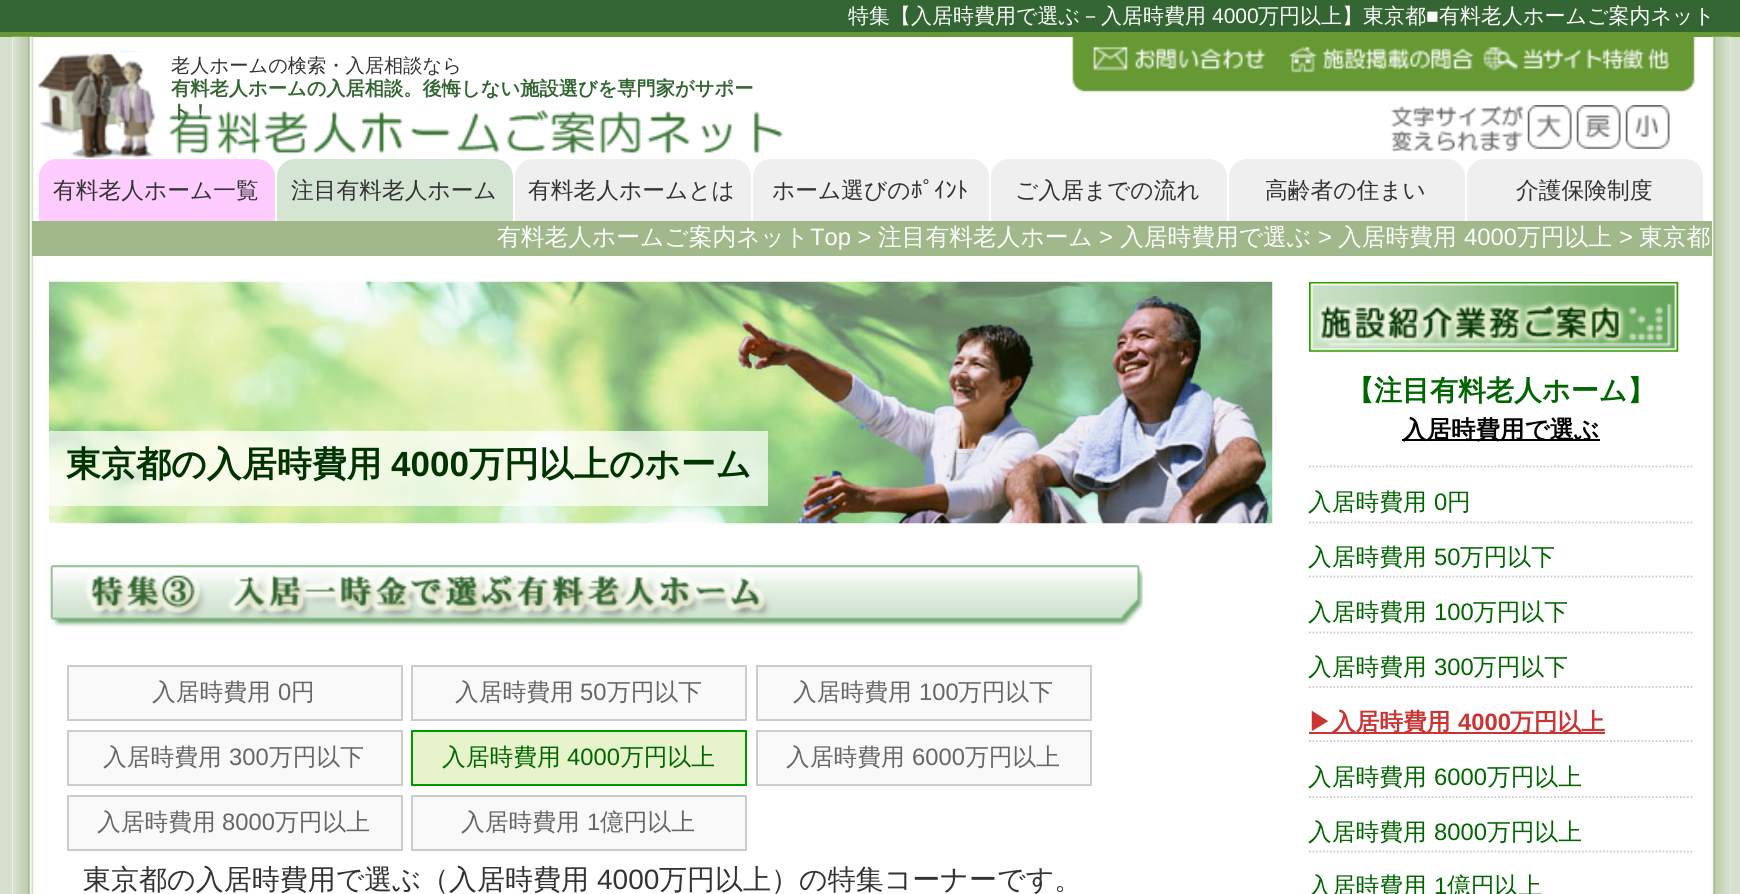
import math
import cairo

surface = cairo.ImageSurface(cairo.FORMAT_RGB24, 1740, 894)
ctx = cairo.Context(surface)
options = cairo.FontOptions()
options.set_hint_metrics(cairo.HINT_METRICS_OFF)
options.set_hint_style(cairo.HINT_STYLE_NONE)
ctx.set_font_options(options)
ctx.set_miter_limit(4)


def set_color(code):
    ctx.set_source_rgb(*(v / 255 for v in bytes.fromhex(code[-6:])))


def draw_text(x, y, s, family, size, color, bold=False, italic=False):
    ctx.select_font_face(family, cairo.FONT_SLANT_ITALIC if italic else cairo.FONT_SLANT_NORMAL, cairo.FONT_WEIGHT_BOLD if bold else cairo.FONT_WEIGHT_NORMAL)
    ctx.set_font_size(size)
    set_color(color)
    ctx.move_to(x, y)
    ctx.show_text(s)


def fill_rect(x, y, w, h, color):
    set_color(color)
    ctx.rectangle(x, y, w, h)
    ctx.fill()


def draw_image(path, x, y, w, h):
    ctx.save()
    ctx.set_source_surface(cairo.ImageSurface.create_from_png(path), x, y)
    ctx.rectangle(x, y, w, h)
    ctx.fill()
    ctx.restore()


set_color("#d6e0cc")
ctx.paint()
fill_rect(0, 0, 1740, 32, "#336633")
fill_rect(0, 32, 1740, 5, "#669933")
draw_text(848, 23, "特集【入居時費用で選ぶ－入居時費用", "WenQuanYi Zen Hei Medium", 21, "#ffffff")
draw_text(1212, 23, "4000", "Liberation Sans", 21, "#ffffff")
draw_text(1258, 23, "万円以上】東京都", "WenQuanYi Zen Hei Medium", 21, "#ffffff")
draw_text(1426, 23, "■", "Liberation Sans", 21, "#ffffff")
draw_text(1439, 23, "有料老人ホームご案内ネット", "WenQuanYi Zen Hei Medium", 21, "#ffffff")
fill_rect(12, 37, 1719, 857, "#ffffff")
draw_image("assets/img1.png", 12, 36, 1719, 858)
draw_image("assets/img2.png", 37, 49, 746, 109)
draw_text(171, 72, "老人ホームの検索・入居相談なら", "WenQuanYi Zen Hei Medium", 19.25, "#333333")
draw_text(171, 95, "有料老人ホームの入居相談。後悔しない施設選びを専門家がサポー", "WenQuanYi Zen Hei", 19.25, "#336633", bold=True)
draw_text(171, 118, "ト！", "WenQuanYi Zen Hei", 19.25, "#336633", bold=True)
draw_image("assets/img3.png", 1072, 37, 623, 116)
draw_image("assets/img4.png", 1093, 46, 173, 25)
draw_image("assets/img5.png", 1288, 46, 186, 27)
draw_image("assets/img6.png", 1483, 46, 187, 25)
draw_image("assets/img7.png", 1527, 105, 45, 44)
draw_image("assets/img8.png", 1576, 105, 45, 44)
draw_image("assets/img9.png", 1625, 105, 45, 44)
set_color("#ffccff")
ctx.new_path()
ctx.move_to(57, 159)
ctx.line_to(257, 159)
ctx.curve_to(267, 159, 275, 167, 275, 177)
ctx.line_to(275, 221)
ctx.line_to(39, 221)
ctx.line_to(39, 177)
ctx.curve_to(39, 167, 47, 159, 57, 159)
ctx.close_path()
ctx.fill()
draw_text(53, 198, "有料老人ホーム一覧", "WenQuanYi Zen Hei Medium", 22.75, "#333333")
set_color("#d4e5d4")
ctx.new_path()
ctx.move_to(295, 159)
ctx.line_to(495, 159)
ctx.curve_to(505, 159, 513, 167, 513, 177)
ctx.line_to(513, 221)
ctx.line_to(277, 221)
ctx.line_to(277, 177)
ctx.curve_to(277, 167, 285, 159, 295, 159)
ctx.close_path()
ctx.fill()
draw_text(291, 198, "注目有料老人ホーム", "WenQuanYi Zen Hei Medium", 22.75, "#333333")
set_color("#efefef")
ctx.new_path()
ctx.move_to(533, 159)
ctx.line_to(733, 159)
ctx.curve_to(743, 159, 751, 167, 751, 177)
ctx.line_to(751, 221)
ctx.line_to(515, 221)
ctx.line_to(515, 177)
ctx.curve_to(515, 167, 523, 159, 533, 159)
ctx.close_path()
ctx.fill()
draw_text(528, 198, "有料老人ホームとは", "WenQuanYi Zen Hei Medium", 22.75, "#333333")
set_color("#efefef")
ctx.new_path()
ctx.move_to(771, 159)
ctx.line_to(971, 159)
ctx.curve_to(981, 159, 989, 167, 989, 177)
ctx.line_to(989, 221)
ctx.line_to(753, 221)
ctx.line_to(753, 177)
ctx.curve_to(753, 167, 761, 159, 771, 159)
ctx.close_path()
ctx.fill()
draw_text(772, 198, "ホーム選びの", "WenQuanYi Zen Hei Medium", 22.75, "#333333")
draw_text(911, 198, "ﾎﾟｲﾝﾄ", "IPAPGothic", 22.75, "#333333")
set_color("#efefef")
ctx.new_path()
ctx.move_to(1009, 159)
ctx.line_to(1209, 159)
ctx.curve_to(1219, 159, 1227, 167, 1227, 177)
ctx.line_to(1227, 221)
ctx.line_to(991, 221)
ctx.line_to(991, 177)
ctx.curve_to(991, 167, 999, 159, 1009, 159)
ctx.close_path()
ctx.fill()
draw_text(1015, 198, "ご入居までの流れ", "WenQuanYi Zen Hei Medium", 22.75, "#333333")
set_color("#efefef")
ctx.new_path()
ctx.move_to(1247, 159)
ctx.line_to(1447, 159)
ctx.curve_to(1457, 159, 1465, 167, 1465, 177)
ctx.line_to(1465, 221)
ctx.line_to(1229, 221)
ctx.line_to(1229, 177)
ctx.curve_to(1229, 167, 1237, 159, 1247, 159)
ctx.close_path()
ctx.fill()
draw_text(1265, 198, "高齢者の住まい", "WenQuanYi Zen Hei Medium", 22.75, "#333333")
set_color("#efefef")
ctx.new_path()
ctx.move_to(1485, 159)
ctx.line_to(1685, 159)
ctx.curve_to(1695, 159, 1703, 167, 1703, 177)
ctx.line_to(1703, 221)
ctx.line_to(1467, 221)
ctx.line_to(1467, 177)
ctx.curve_to(1467, 167, 1475, 159, 1485, 159)
ctx.close_path()
ctx.fill()
draw_text(1516, 198, "介護保険制度", "WenQuanYi Zen Hei Medium", 22.75, "#333333")
fill_rect(32, 221, 1680, 35, "#a0b88a")
draw_text(497, 245, "有料老人ホームご案内ネット", "WenQuanYi Zen Hei Medium", 23.75, "#ffffff")
draw_text(810, 245, "Top >", "Liberation Sans", 23.75, "#ffffff")
draw_text(878, 245, "注目有料老人ホーム", "WenQuanYi Zen Hei Medium", 23.75, "#ffffff")
draw_text(1099, 245, ">", "Liberation Sans", 23.75, "#ffffff")
draw_text(1120, 245, "入居時費用で選ぶ", "WenQuanYi Zen Hei Medium", 23.75, "#ffffff")
draw_text(1318, 245, ">", "Liberation Sans", 23.75, "#ffffff")
draw_text(1338, 245, "入居時費用", "WenQuanYi Zen Hei Medium", 23.75, "#ffffff")
draw_text(1464, 245, "4000", "Liberation Sans", 23.75, "#ffffff")
draw_text(1517, 245, "万円以上", "WenQuanYi Zen Hei Medium", 23.75, "#ffffff")
draw_text(1619, 245, ">", "Liberation Sans", 23.75, "#ffffff")
draw_text(1639, 245, "東京都", "WenQuanYi Zen Hei Medium", 23.75, "#ffffff")
draw_image("assets/img10.png", 49, 281, 1224, 243)
ctx.set_source_rgba(1, 1, 1, 0.7)
ctx.rectangle(49, 431, 719, 75)
ctx.fill()
draw_text(66, 476, "東京都の入居時費用", "WenQuanYi Zen Hei", 35, "#003300", bold=True)
draw_text(391, 476, "4000", "Liberation Sans", 35, "#003300", bold=True)
draw_text(469, 476, "万円以上のホーム", "WenQuanYi Zen Hei", 35, "#003300", bold=True)
draw_image("assets/img11.png", 50, 565, 1093, 62)
set_color("#f9f9f9")
ctx.rectangle(68, 666, 334, 54)
ctx.fill_preserve()
set_color("#cccccc")
ctx.stroke()
draw_text(152, 700, "入居時費用", "WenQuanYi Zen Hei Medium", 23.75, "#666666")
draw_text(278, 700, "0", "Liberation Sans", 23.75, "#666666")
draw_text(291, 700, "円", "WenQuanYi Zen Hei Medium", 23.75, "#666666")
set_color("#f9f9f9")
ctx.rectangle(412, 666, 334, 54)
ctx.fill_preserve()
set_color("#cccccc")
ctx.stroke()
draw_text(455, 700, "入居時費用", "WenQuanYi Zen Hei Medium", 23.75, "#666666")
draw_text(580, 700, "50", "Liberation Sans", 23.75, "#666666")
draw_text(607, 700, "万円以下", "WenQuanYi Zen Hei Medium", 23.75, "#666666")
set_color("#f9f9f9")
ctx.rectangle(757, 666, 334, 54)
ctx.fill_preserve()
set_color("#cccccc")
ctx.stroke()
draw_text(793, 700, "入居時費用", "WenQuanYi Zen Hei Medium", 23.75, "#666666")
draw_text(919, 700, "100", "Liberation Sans", 23.75, "#666666")
draw_text(958, 700, "万円以下", "WenQuanYi Zen Hei Medium", 23.75, "#666666")
set_color("#f9f9f9")
ctx.rectangle(68, 731, 334, 54)
ctx.fill_preserve()
set_color("#cccccc")
ctx.stroke()
draw_text(103, 765, "入居時費用", "WenQuanYi Zen Hei Medium", 23.75, "#666666")
draw_text(229, 765, "300", "Liberation Sans", 23.75, "#666666")
draw_text(269, 765, "万円以下", "WenQuanYi Zen Hei Medium", 23.75, "#666666")
set_color("#e7f3cb")
ctx.rectangle(412, 731, 334, 54)
ctx.fill_preserve()
set_color("#009900")
ctx.stroke()
draw_text(442, 765, "入居時費用", "WenQuanYi Zen Hei Medium", 23.75, "#006600")
draw_text(567, 765, "4000", "Liberation Sans", 23.75, "#006600")
draw_text(620, 765, "万円以上", "WenQuanYi Zen Hei Medium", 23.75, "#006600")
set_color("#f9f9f9")
ctx.rectangle(757, 731, 334, 54)
ctx.fill_preserve()
set_color("#cccccc")
ctx.stroke()
draw_text(786, 765, "入居時費用", "WenQuanYi Zen Hei Medium", 23.75, "#666666")
draw_text(912, 765, "6000", "Liberation Sans", 23.75, "#666666")
draw_text(965, 765, "万円以上", "WenQuanYi Zen Hei Medium", 23.75, "#666666")
set_color("#f9f9f9")
ctx.rectangle(68, 796, 334, 54)
ctx.fill_preserve()
set_color("#cccccc")
ctx.stroke()
draw_text(97, 830, "入居時費用", "WenQuanYi Zen Hei Medium", 23.75, "#666666")
draw_text(222, 830, "8000", "Liberation Sans", 23.75, "#666666")
draw_text(275, 830, "万円以上", "WenQuanYi Zen Hei Medium", 23.75, "#666666")
set_color("#f9f9f9")
ctx.rectangle(412, 796, 334, 54)
ctx.fill_preserve()
set_color("#cccccc")
ctx.stroke()
draw_text(461, 830, "入居時費用", "WenQuanYi Zen Hei Medium", 23.75, "#666666")
draw_text(587, 830, "1", "Liberation Sans", 23.75, "#666666")
draw_text(600, 830, "億円以上", "WenQuanYi Zen Hei Medium", 23.75, "#666666")
draw_text(83, 889, "東京都の入居時費用で選ぶ（入居時費用", "WenQuanYi Zen Hei Medium", 28, "#333333")
draw_text(597, 889, "4000", "Liberation Sans", 28, "#333333")
draw_text(659, 889, "万円以上）の特集コーナーです。", "WenQuanYi Zen Hei Medium", 28, "#333333")
draw_image("assets/img12.png", 1309, 281, 370, 71)
draw_text(1346, 400, "【注目有料老人ホーム】", "WenQuanYi Zen Hei", 28, "#006600", bold=True)
fill_rect(1402, 439, 198, 2, "#000000")
draw_text(1402, 438, "入居時費用で選ぶ", "WenQuanYi Zen Hei", 24.5, "#000000", bold=True)
ctx.new_path()
ctx.move_to(1309, 466.5)
ctx.line_to(1694, 466.5)
set_color("#cccccc")
ctx.set_line_width(1.8)
ctx.set_dash([1.75, 1.75])
ctx.stroke()
ctx.new_path()
ctx.move_to(1309, 522.5)
ctx.line_to(1694, 522.5)
ctx.stroke()
draw_text(1308, 510, "入居時費用", "WenQuanYi Zen Hei Medium", 23.75, "#006600")
draw_text(1434, 510, "0", "Liberation Sans", 23.75, "#006600")
draw_text(1447, 510, "円", "WenQuanYi Zen Hei Medium", 23.75, "#006600")
ctx.new_path()
ctx.move_to(1309, 576.5)
ctx.line_to(1694, 576.5)
set_color("#cccccc")
ctx.stroke()
draw_text(1308, 565, "入居時費用", "WenQuanYi Zen Hei Medium", 23.75, "#006600")
draw_text(1434, 565, "50", "Liberation Sans", 23.75, "#006600")
draw_text(1460, 565, "万円以下", "WenQuanYi Zen Hei Medium", 23.75, "#006600")
ctx.new_path()
ctx.move_to(1309, 632.5)
ctx.line_to(1694, 632.5)
set_color("#cccccc")
ctx.stroke()
draw_text(1308, 620, "入居時費用", "WenQuanYi Zen Hei Medium", 23.75, "#006600")
draw_text(1434, 620, "100", "Liberation Sans", 23.75, "#006600")
draw_text(1473, 620, "万円以下", "WenQuanYi Zen Hei Medium", 23.75, "#006600")
ctx.new_path()
ctx.move_to(1309, 687)
ctx.line_to(1694, 687)
set_color("#cccccc")
ctx.stroke()
draw_text(1308, 675, "入居時費用", "WenQuanYi Zen Hei Medium", 23.75, "#006600")
draw_text(1434, 675, "300", "Liberation Sans", 23.75, "#006600")
draw_text(1473, 675, "万円以下", "WenQuanYi Zen Hei Medium", 23.75, "#006600")
ctx.new_path()
ctx.move_to(1309, 741)
ctx.line_to(1694, 741)
set_color("#cccccc")
ctx.stroke()
fill_rect(1309, 732, 296, 2, "#cc3333")
draw_text(1308, 730, "▶入居時費用", "WenQuanYi Zen Hei", 23.75, "#cc3333", bold=True)
draw_text(1458, 730, "4000", "Liberation Sans", 23.75, "#cc3333", bold=True)
draw_text(1510, 730, "万円以上", "WenQuanYi Zen Hei", 23.75, "#cc3333", bold=True)
ctx.new_path()
ctx.move_to(1309, 797)
ctx.line_to(1694, 797)
set_color("#cccccc")
ctx.stroke()
draw_text(1308, 785, "入居時費用", "WenQuanYi Zen Hei Medium", 23.75, "#006600")
draw_text(1434, 785, "6000", "Liberation Sans", 23.75, "#006600")
draw_text(1487, 785, "万円以上", "WenQuanYi Zen Hei Medium", 23.75, "#006600")
ctx.new_path()
ctx.move_to(1309, 851.5)
ctx.line_to(1694, 851.5)
set_color("#cccccc")
ctx.stroke()
draw_text(1308, 840, "入居時費用", "WenQuanYi Zen Hei Medium", 23.75, "#006600")
draw_text(1434, 840, "8000", "Liberation Sans", 23.75, "#006600")
draw_text(1487, 840, "万円以上", "WenQuanYi Zen Hei Medium", 23.75, "#006600")
draw_text(1308, 894, "入居時費用", "WenQuanYi Zen Hei Medium", 23.75, "#006600")
draw_text(1434, 894, "1", "Liberation Sans", 23.75, "#006600")
draw_text(1447, 894, "億円以上", "WenQuanYi Zen Hei Medium", 23.75, "#006600")
surface.write_to_png("output.png")
